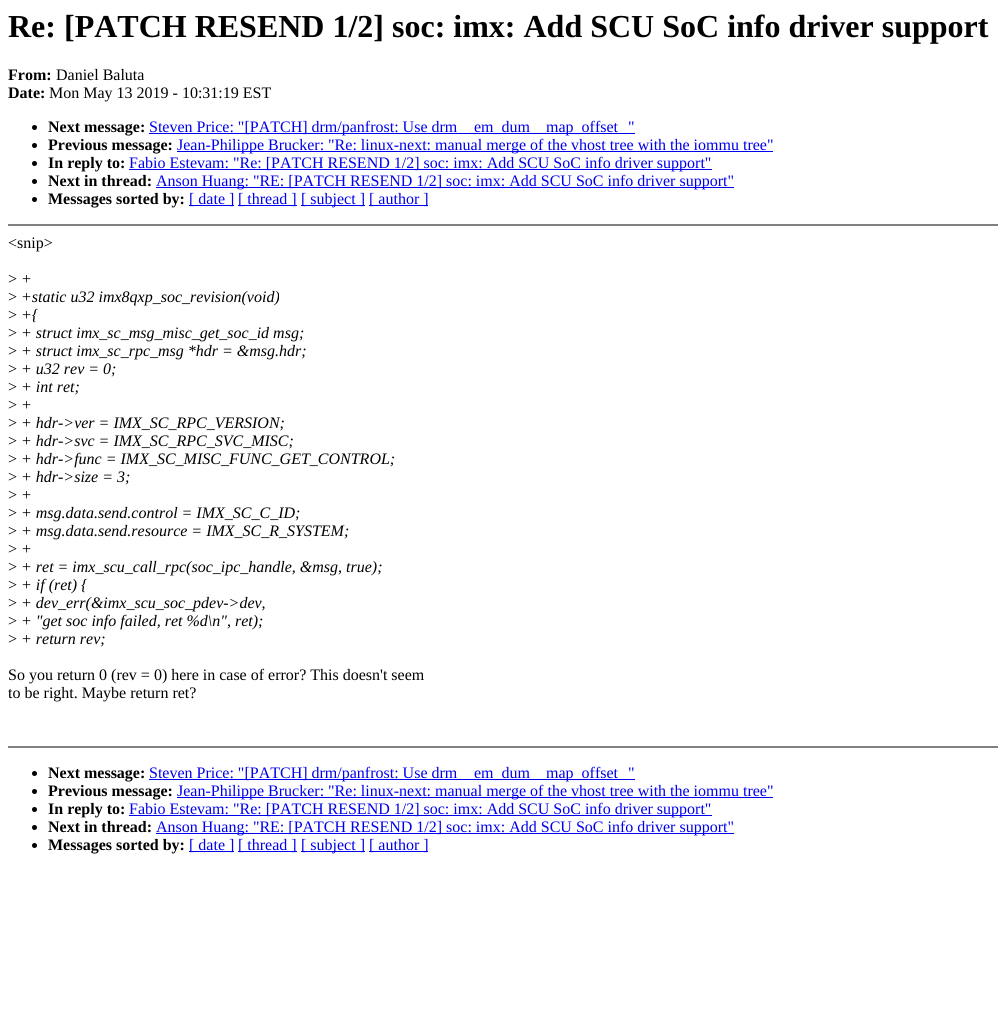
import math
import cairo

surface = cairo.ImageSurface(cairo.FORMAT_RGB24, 1006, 1024)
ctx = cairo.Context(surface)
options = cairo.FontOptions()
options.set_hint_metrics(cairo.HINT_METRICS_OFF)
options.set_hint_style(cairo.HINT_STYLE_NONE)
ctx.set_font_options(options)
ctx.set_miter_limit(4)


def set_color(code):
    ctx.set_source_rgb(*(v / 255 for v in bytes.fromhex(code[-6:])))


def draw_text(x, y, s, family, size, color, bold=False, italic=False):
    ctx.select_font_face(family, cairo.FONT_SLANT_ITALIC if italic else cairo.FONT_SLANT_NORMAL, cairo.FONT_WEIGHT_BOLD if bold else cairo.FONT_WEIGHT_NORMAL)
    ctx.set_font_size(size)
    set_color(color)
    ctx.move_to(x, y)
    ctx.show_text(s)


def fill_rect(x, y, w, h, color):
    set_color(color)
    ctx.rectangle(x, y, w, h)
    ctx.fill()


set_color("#ffffff")
ctx.paint()
draw_text(8, 37, "Re: [PATCH RESEND 1/2] soc: imx: Add SCU SoC info driver support", "Liberation Serif", 32, "#000000", bold=True)
draw_text(8, 80, "From:", "Liberation Serif", 16, "#000000", bold=True)
draw_text(56, 80, "Daniel Baluta", "Liberation Serif", 16, "#000000")
draw_text(8, 98, "Date:", "Liberation Serif", 16, "#000000", bold=True)
draw_text(49, 98, "Mon May 13 2019 - 10:31:19 EST", "Liberation Serif", 16, "#000000")
draw_text(48, 132, "Next message:", "Liberation Serif", 16, "#000000", bold=True)
fill_rect(149, 133, 486, 1, "#0000ee")
draw_text(149, 132, "Steven Price: \"[PATCH] drm/panfrost: Use drm", "Liberation Serif", 16, "#0000ee")
draw_text(474, 132, "em_dum", "Liberation Serif", 16, "#0000ee")
draw_text(546, 132, "map_offset", "Liberation Serif", 16, "#0000ee")
draw_text(628, 132, "\"", "Liberation Serif", 16, "#0000ee")
set_color("#000000")
ctx.new_path()
ctx.arc(34.5, 127.5, 2.5, 0, 2 * math.pi)
ctx.fill()
ctx.arc(34.5, 145.5, 2.5, 0, 2 * math.pi)
ctx.fill()
draw_text(48, 150, "Previous message:", "Liberation Serif", 16, "#000000", bold=True)
fill_rect(177, 151, 596, 1, "#0000ee")
draw_text(177, 150, "Jean-Philippe Brucker: \"Re: linux-next: manual merge of the vhost tree with the iommu tree\"", "Liberation Serif", 16, "#0000ee")
set_color("#000000")
ctx.new_path()
ctx.arc(34.5, 163.5, 2.5, 0, 2 * math.pi)
ctx.fill()
draw_text(48, 168, "In reply to:", "Liberation Serif", 16, "#000000", bold=True)
fill_rect(129, 169, 583, 1, "#0000ee")
draw_text(129, 168, "Fabio Estevam: \"Re: [PATCH RESEND 1/2] soc: imx: Add SCU SoC info driver support\"", "Liberation Serif", 16, "#0000ee")
set_color("#000000")
ctx.new_path()
ctx.arc(34.5, 181.5, 2.5, 0, 2 * math.pi)
ctx.fill()
draw_text(48, 186, "Next in thread:", "Liberation Serif", 16, "#000000", bold=True)
fill_rect(156, 187, 578, 1, "#0000ee")
draw_text(156, 186, "Anson Huang: \"RE: [PATCH RESEND 1/2] soc: imx: Add SCU SoC info driver support\"", "Liberation Serif", 16, "#0000ee")
set_color("#000000")
ctx.new_path()
ctx.arc(34.5, 199.5, 2.5, 0, 2 * math.pi)
ctx.fill()
draw_text(48, 204, "Messages sorted by:", "Liberation Serif", 16, "#000000", bold=True)
fill_rect(189, 205, 45, 1, "#0000ee")
draw_text(189, 204, "[ date ]", "Liberation Serif", 16, "#0000ee")
fill_rect(238, 205, 59, 1, "#0000ee")
draw_text(238, 204, "[ thread ]", "Liberation Serif", 16, "#0000ee")
fill_rect(301, 205, 64, 1, "#0000ee")
draw_text(301, 204, "[ subject ]", "Liberation Serif", 16, "#0000ee")
fill_rect(369, 205, 59, 1, "#0000ee")
draw_text(369, 204, "[ author ]", "Liberation Serif", 16, "#0000ee")
fill_rect(8, 224, 990, 2, "#808080")
draw_text(8, 248, "<snip>", "Liberation Serif", 16, "#000000")
draw_text(8, 284, ">", "Liberation Serif", 16, "#000000")
draw_text(21, 284, "+", "Liberation Serif", 16, "#000000", italic=True)
draw_text(8, 302, ">", "Liberation Serif", 16, "#000000")
draw_text(21, 302, "+static u32 imx8qxp_soc_revision(void)", "Liberation Serif", 16, "#000000", italic=True)
draw_text(8, 320, ">", "Liberation Serif", 16, "#000000")
draw_text(21, 320, "+{", "Liberation Serif", 16, "#000000", italic=True)
draw_text(8, 338, ">", "Liberation Serif", 16, "#000000")
draw_text(21, 338, "+ struct imx_sc_msg_misc_get_soc_id msg;", "Liberation Serif", 16, "#000000", italic=True)
draw_text(8, 356, ">", "Liberation Serif", 16, "#000000")
draw_text(21, 356, "+ struct imx_sc_rpc_msg *hdr = &msg.hdr;", "Liberation Serif", 16, "#000000", italic=True)
draw_text(8, 374, ">", "Liberation Serif", 16, "#000000")
draw_text(21, 374, "+ u32 rev = 0;", "Liberation Serif", 16, "#000000", italic=True)
draw_text(8, 392, ">", "Liberation Serif", 16, "#000000")
draw_text(21, 392, "+ int ret;", "Liberation Serif", 16, "#000000", italic=True)
draw_text(8, 410, ">", "Liberation Serif", 16, "#000000")
draw_text(21, 410, "+", "Liberation Serif", 16, "#000000", italic=True)
draw_text(8, 428, ">", "Liberation Serif", 16, "#000000")
draw_text(21, 428, "+ hdr->ver = IMX_SC_RPC_VERSION;", "Liberation Serif", 16, "#000000", italic=True)
draw_text(8, 446, ">", "Liberation Serif", 16, "#000000")
draw_text(21, 446, "+ hdr->svc = IMX_SC_RPC_SVC_MISC;", "Liberation Serif", 16, "#000000", italic=True)
draw_text(8, 464, ">", "Liberation Serif", 16, "#000000")
draw_text(21, 464, "+ hdr->func = IMX_SC_MISC_FUNC_GET_CONTROL;", "Liberation Serif", 16, "#000000", italic=True)
draw_text(8, 482, ">", "Liberation Serif", 16, "#000000")
draw_text(21, 482, "+ hdr->size = 3;", "Liberation Serif", 16, "#000000", italic=True)
draw_text(8, 500, ">", "Liberation Serif", 16, "#000000")
draw_text(21, 500, "+", "Liberation Serif", 16, "#000000", italic=True)
draw_text(8, 518, ">", "Liberation Serif", 16, "#000000")
draw_text(21, 518, "+ msg.data.send.control = IMX_SC_C_ID;", "Liberation Serif", 16, "#000000", italic=True)
draw_text(8, 536, ">", "Liberation Serif", 16, "#000000")
draw_text(21, 536, "+ msg.data.send.resource = IMX_SC_R_SYSTEM;", "Liberation Serif", 16, "#000000", italic=True)
draw_text(8, 554, ">", "Liberation Serif", 16, "#000000")
draw_text(21, 554, "+", "Liberation Serif", 16, "#000000", italic=True)
draw_text(8, 572, ">", "Liberation Serif", 16, "#000000")
draw_text(21, 572, "+ ret = imx_scu_call_rpc(soc_ipc_handle, &msg, true);", "Liberation Serif", 16, "#000000", italic=True)
draw_text(8, 590, ">", "Liberation Serif", 16, "#000000")
draw_text(21, 590, "+ if (ret) {", "Liberation Serif", 16, "#000000", italic=True)
draw_text(8, 608, ">", "Liberation Serif", 16, "#000000")
draw_text(21, 608, "+ dev_err(&imx_scu_soc_pdev->dev,", "Liberation Serif", 16, "#000000", italic=True)
draw_text(8, 626, ">", "Liberation Serif", 16, "#000000")
draw_text(21, 626, "+ \"get soc info failed, ret %d\\n\", ret);", "Liberation Serif", 16, "#000000", italic=True)
draw_text(8, 644, ">", "Liberation Serif", 16, "#000000")
draw_text(21, 644, "+ return rev;", "Liberation Serif", 16, "#000000", italic=True)
draw_text(8, 680, "So you return 0 (rev = 0) here in case of error? This doesn't seem", "Liberation Serif", 16, "#000000")
draw_text(8, 698, "to be right. Maybe return ret?", "Liberation Serif", 16, "#000000")
fill_rect(8, 746, 990, 2, "#808080")
draw_text(48, 778, "Next message:", "Liberation Serif", 16, "#000000", bold=True)
fill_rect(149, 779, 486, 1, "#0000ee")
draw_text(149, 778, "Steven Price: \"[PATCH] drm/panfrost: Use drm", "Liberation Serif", 16, "#0000ee")
draw_text(474, 778, "em_dum", "Liberation Serif", 16, "#0000ee")
draw_text(546, 778, "map_offset", "Liberation Serif", 16, "#0000ee")
draw_text(628, 778, "\"", "Liberation Serif", 16, "#0000ee")
set_color("#000000")
ctx.new_path()
ctx.arc(34.5, 773.5, 2.5, 0, 2 * math.pi)
ctx.fill()
ctx.arc(34.5, 791.5, 2.5, 0, 2 * math.pi)
ctx.fill()
draw_text(48, 796, "Previous message:", "Liberation Serif", 16, "#000000", bold=True)
fill_rect(177, 797, 596, 1, "#0000ee")
draw_text(177, 796, "Jean-Philippe Brucker: \"Re: linux-next: manual merge of the vhost tree with the iommu tree\"", "Liberation Serif", 16, "#0000ee")
set_color("#000000")
ctx.new_path()
ctx.arc(34.5, 809.5, 2.5, 0, 2 * math.pi)
ctx.fill()
draw_text(48, 814, "In reply to:", "Liberation Serif", 16, "#000000", bold=True)
fill_rect(129, 815, 583, 1, "#0000ee")
draw_text(129, 814, "Fabio Estevam: \"Re: [PATCH RESEND 1/2] soc: imx: Add SCU SoC info driver support\"", "Liberation Serif", 16, "#0000ee")
set_color("#000000")
ctx.new_path()
ctx.arc(34.5, 827.5, 2.5, 0, 2 * math.pi)
ctx.fill()
draw_text(48, 832, "Next in thread:", "Liberation Serif", 16, "#000000", bold=True)
fill_rect(156, 833, 578, 1, "#0000ee")
draw_text(156, 832, "Anson Huang: \"RE: [PATCH RESEND 1/2] soc: imx: Add SCU SoC info driver support\"", "Liberation Serif", 16, "#0000ee")
set_color("#000000")
ctx.new_path()
ctx.arc(34.5, 845.5, 2.5, 0, 2 * math.pi)
ctx.fill()
draw_text(48, 850, "Messages sorted by:", "Liberation Serif", 16, "#000000", bold=True)
fill_rect(189, 851, 45, 1, "#0000ee")
draw_text(189, 850, "[ date ]", "Liberation Serif", 16, "#0000ee")
fill_rect(238, 851, 59, 1, "#0000ee")
draw_text(238, 850, "[ thread ]", "Liberation Serif", 16, "#0000ee")
fill_rect(301, 851, 64, 1, "#0000ee")
draw_text(301, 850, "[ subject ]", "Liberation Serif", 16, "#0000ee")
fill_rect(369, 851, 59, 1, "#0000ee")
draw_text(369, 850, "[ author ]", "Liberation Serif", 16, "#0000ee")
surface.write_to_png("output.png")
